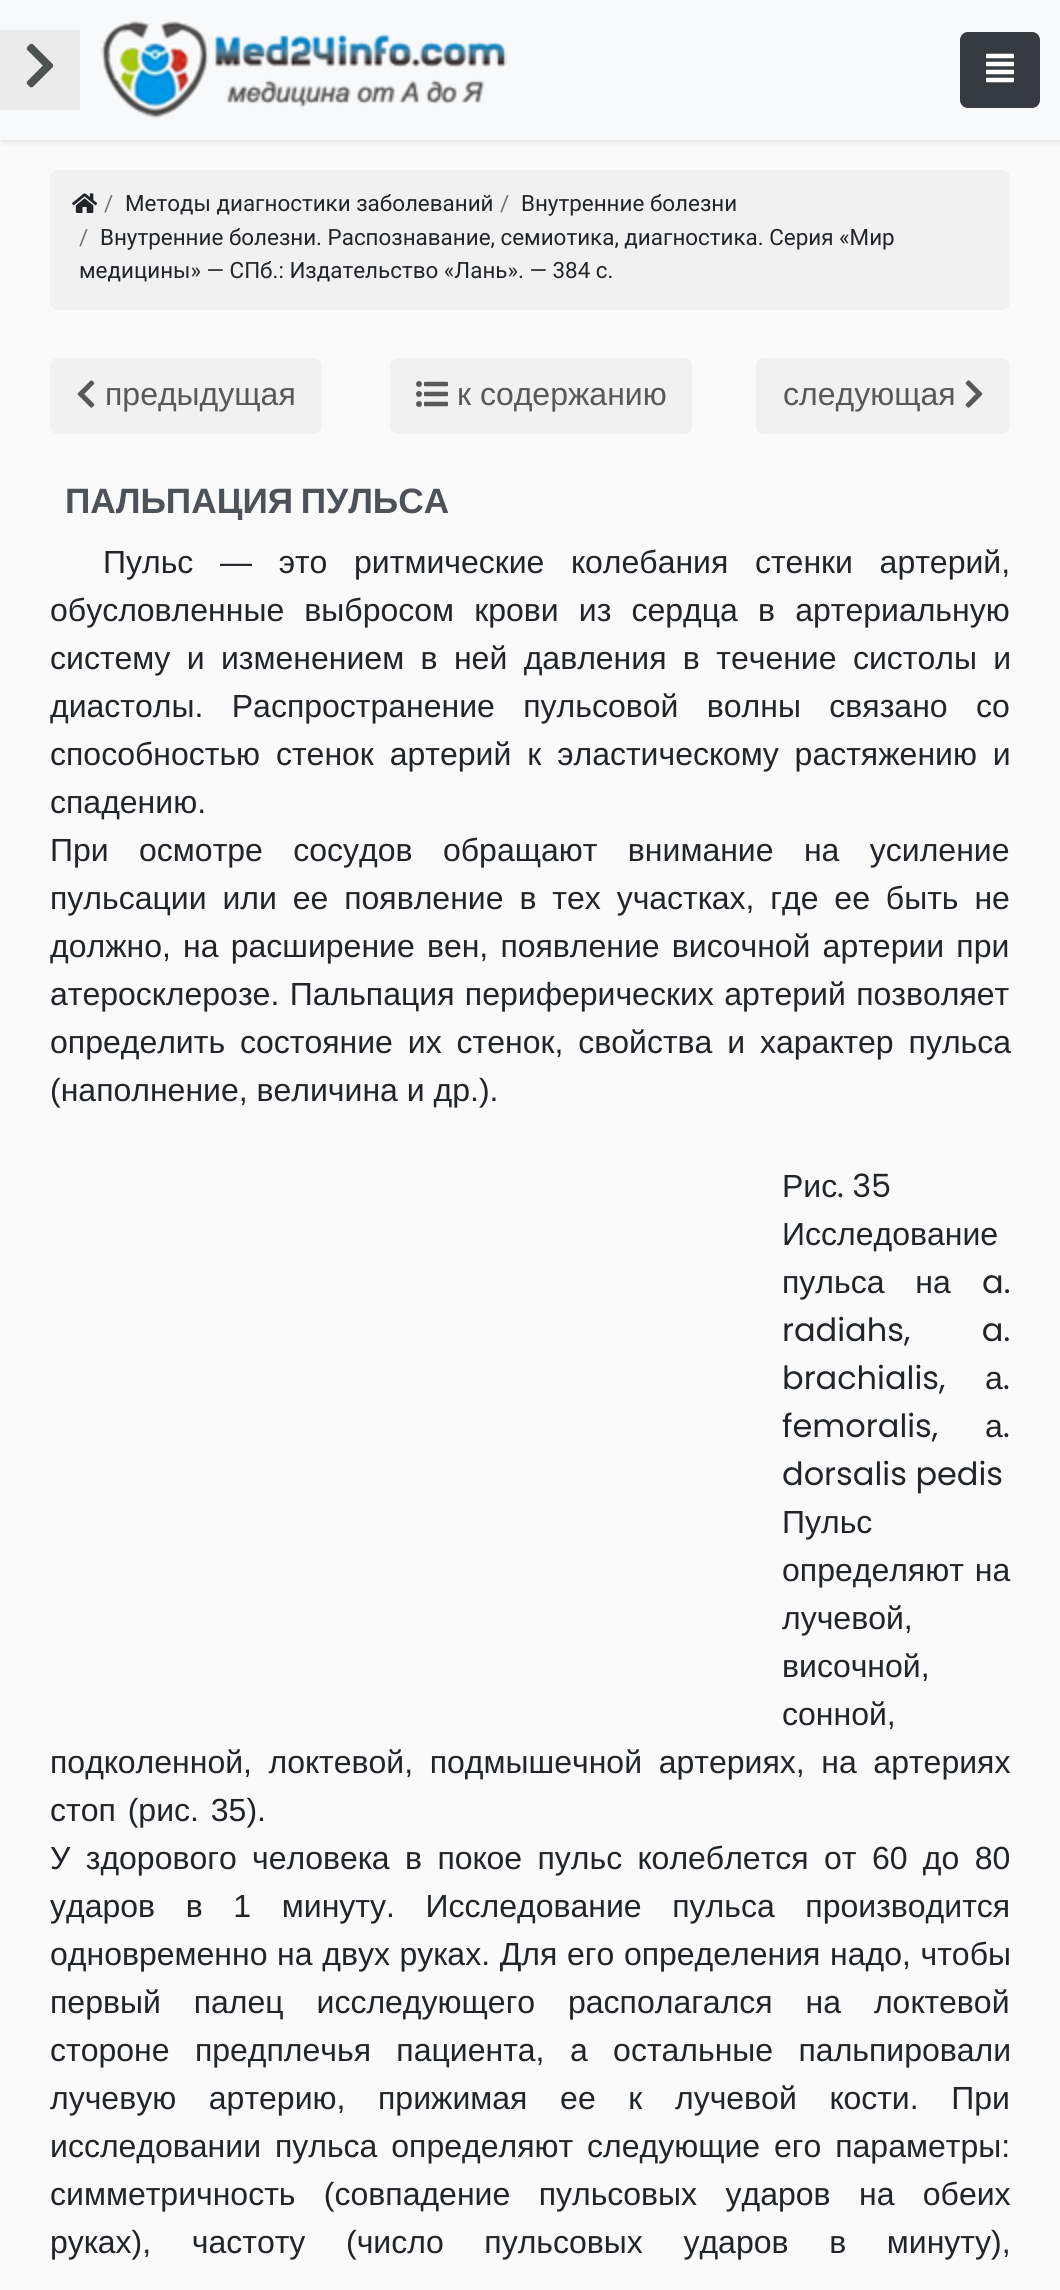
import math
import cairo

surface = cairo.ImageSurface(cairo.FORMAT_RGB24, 1060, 2290)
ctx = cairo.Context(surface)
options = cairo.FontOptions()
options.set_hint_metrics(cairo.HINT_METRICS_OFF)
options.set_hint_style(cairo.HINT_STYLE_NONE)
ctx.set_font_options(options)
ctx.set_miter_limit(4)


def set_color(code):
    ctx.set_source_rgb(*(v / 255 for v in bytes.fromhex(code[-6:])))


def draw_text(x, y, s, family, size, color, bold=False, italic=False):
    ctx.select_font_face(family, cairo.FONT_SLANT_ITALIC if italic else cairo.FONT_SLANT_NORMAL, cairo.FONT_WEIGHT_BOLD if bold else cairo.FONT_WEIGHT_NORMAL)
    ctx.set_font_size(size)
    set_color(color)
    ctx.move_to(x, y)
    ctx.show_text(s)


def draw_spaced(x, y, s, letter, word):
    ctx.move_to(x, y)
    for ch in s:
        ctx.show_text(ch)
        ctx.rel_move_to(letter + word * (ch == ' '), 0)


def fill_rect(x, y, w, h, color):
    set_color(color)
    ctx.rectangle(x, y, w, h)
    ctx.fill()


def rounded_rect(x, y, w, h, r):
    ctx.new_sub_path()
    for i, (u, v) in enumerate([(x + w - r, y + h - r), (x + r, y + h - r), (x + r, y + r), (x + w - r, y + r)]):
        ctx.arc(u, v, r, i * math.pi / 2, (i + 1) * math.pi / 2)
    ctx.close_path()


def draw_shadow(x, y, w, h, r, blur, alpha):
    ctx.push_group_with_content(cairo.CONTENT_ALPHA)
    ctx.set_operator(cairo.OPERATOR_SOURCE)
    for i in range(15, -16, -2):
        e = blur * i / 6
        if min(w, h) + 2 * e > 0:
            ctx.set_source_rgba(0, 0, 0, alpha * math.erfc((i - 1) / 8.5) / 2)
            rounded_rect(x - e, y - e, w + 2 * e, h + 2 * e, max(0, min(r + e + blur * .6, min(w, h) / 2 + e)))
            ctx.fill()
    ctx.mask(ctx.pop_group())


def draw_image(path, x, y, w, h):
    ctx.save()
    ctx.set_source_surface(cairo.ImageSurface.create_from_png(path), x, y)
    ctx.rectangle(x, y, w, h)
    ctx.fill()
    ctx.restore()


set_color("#fafafa")
ctx.paint()
set_color("#000000")
draw_shadow(2, 2, 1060, 140, 0, 3, 0.1)
fill_rect(0, 0, 1060, 140, "#f8f9fa")
fill_rect(0, 30, 80, 80, "#ebebeb")
draw_image("assets/img1.png", 26, 43, 28, 45)
draw_image("assets/img2.png", 100, 21, 408, 99)
set_color("#343a40")
rounded_rect(961, 33, 78, 74, 7)
ctx.fill_preserve()
ctx.stroke()
draw_image("assets/img3.png", 986, 53, 28, 30)
set_color("#f1f1f1")
rounded_rect(50, 170, 960, 140, 8)
ctx.fill()
draw_image("assets/img4.png", 72, 193, 26, 20)
draw_text(104, 211, "/", "Roboto", 22.4, "#6c757d")
draw_text(125, 211, "Методы диагностики заболеваний", "Roboto", 22.4, "#212529")
draw_text(500, 211, "/", "Roboto", 22.4, "#6c757d")
draw_text(521, 211, "Внутренние болезни", "Roboto", 22.4, "#212529")
draw_text(79, 245, "/", "Roboto", 22.4, "#6c757d")
draw_text(100, 245, "Внутренние болезни. Распознавание, семиотика, диагностика. Серия «Мир", "Roboto", 22.4, "#212529")
draw_text(79, 278, "медицины» — СПб.: Издательство «Лань». — 384 с.", "Roboto", 22.4, "#212529")
set_color("#f1f1f1")
rounded_rect(50, 358, 272, 76, 8)
ctx.fill()
draw_image("assets/img5.png", 77, 380, 18, 28)
draw_text(105, 405, "предыдущая", "Liberation Sans", 32, "#595959")
set_color("#f1f1f1")
rounded_rect(390, 358, 302, 76, 8)
ctx.fill()
draw_image("assets/img6.png", 416, 381, 32, 26)
draw_text(457, 405, "к содержанию", "Liberation Sans", 32, "#595959")
set_color("#f1f1f1")
rounded_rect(756, 358, 254, 76, 8)
ctx.fill()
draw_text(783, 405, "следующая", "Liberation Sans", 32, "#595959")
draw_image("assets/img7.png", 965, 380, 18, 28)
ctx.select_font_face("Liberation Sans", cairo.FONT_SLANT_NORMAL, cairo.FONT_WEIGHT_BOLD)
ctx.set_font_size(35.25)
set_color("#4c5258")
draw_spaced(65, 513, "ПАЛЬПАЦИЯ ПУЛЬСА", 0, -2)
ctx.select_font_face("Liberation Sans")
ctx.set_font_size(32)
set_color("#212529")
draw_spaced(103, 573, "Пульс — это ритмические колебания стенки артерий,", 0, 17.75)
draw_spaced(50, 621, "обусловленные выбросом крови из сердца в артериальную", 0, 11.25)
draw_spaced(50, 669, "систему и изменением в ней давления в течение систолы и", 0, 7.5)
draw_spaced(50, 717, "диастолы. Распространение пульсовой волны связано со", 0, 19.5)
draw_spaced(50, 765, "способностью стенок артерий к эластическому растяжению и", 0, 7)
draw_text(50, 813, "спадению.", "Liberation Sans", 32, "#212529")
draw_spaced(50, 861, "При осмотре сосудов обращают внимание на усиление", 0, 21.5)
draw_spaced(50, 909, "пульсации или ее появление в тех участках, где ее быть не", 0, 7)
draw_spaced(50, 957, "должно, на расширение вен, появление височной артерии при", 0, 3.25)
draw_spaced(50, 1005, "атеросклерозе. Пальпация периферических артерий позволяет", 0, 1.5)
draw_spaced(50, 1053, "определить состояние их стенок, свойства и характер пульса", 0, 6)
draw_text(50, 1101, "(наполнение, величина и др.).", "Liberation Sans", 32, "#212529")
draw_text(782, 1197, "Рис", "Liberation Sans", 32, "#212529")
draw_text(837, 1197, ". 35", "Poppins", 32, "#212529")
draw_text(782, 1245, "Исследование", "Liberation Sans", 32, "#212529")
draw_spaced(782, 1293, "пульса на", 0, 22)
draw_text(982, 1293, "a.", "Poppins", 32, "#212529")
draw_spaced(782, 1341, "radiahs, a.", 0, 63)
draw_text(782, 1389, "brachialis,", "Poppins", 32, "#212529")
draw_text(985, 1389, "а", "Liberation Sans", 32, "#212529")
draw_text(1003, 1389, ".", "Poppins", 32, "#212529")
draw_text(782, 1437, "femoralis,", "Poppins", 32, "#212529")
draw_text(985, 1437, "а", "Liberation Sans", 32, "#212529")
draw_text(1003, 1437, ".", "Poppins", 32, "#212529")
draw_text(782, 1485, "dorsalis pedis", "Poppins", 32, "#212529")
draw_text(782, 1533, "Пульс", "Liberation Sans", 32, "#212529")
draw_spaced(782, 1581, "определяют на", 0, 2)
draw_text(782, 1629, "лучевой,", "Liberation Sans", 32, "#212529")
draw_text(782, 1677, "височной,", "Liberation Sans", 32, "#212529")
draw_text(782, 1725, "сонной,", "Liberation Sans", 32, "#212529")
draw_spaced(50, 1773, "подколенной, локтевой, подмышечной артериях, на артериях", 0, 7.75)
draw_spaced(50, 1821, "стоп (рис. 35).", 0, 3)
draw_spaced(50, 1869, "У здорового человека в покое пульс колеблется от 60 до 80", 0, 6.5)
draw_spaced(50, 1917, "ударов в 1 минуту. Исследование пульса производится", 0, 21.75)
draw_spaced(50, 1965, "одновременно на двух руках. Для его определения надо, чтобы", 0, 0.75)
draw_spaced(50, 2013, "первый палец исследующего располагался на локтевой", 0, 24)
draw_spaced(50, 2061, "стороне предплечья пациента, а остальные пальпировали", 0, 16.5)
draw_spaced(50, 2109, "лучевую артерию, прижимая ее к лучевой кости. При", 0, 23.75)
draw_spaced(50, 2157, "исследовании пульса определяют следующие его параметры:", 0, 5)
draw_spaced(50, 2205, "симметричность (совпадение пульсовых ударов на обеих", 0, 19.5)
draw_spaced(50, 2253, "руках), частоту (число пульсовых ударов в минуту),", 0, 31.75)
surface.write_to_png("output.png")
